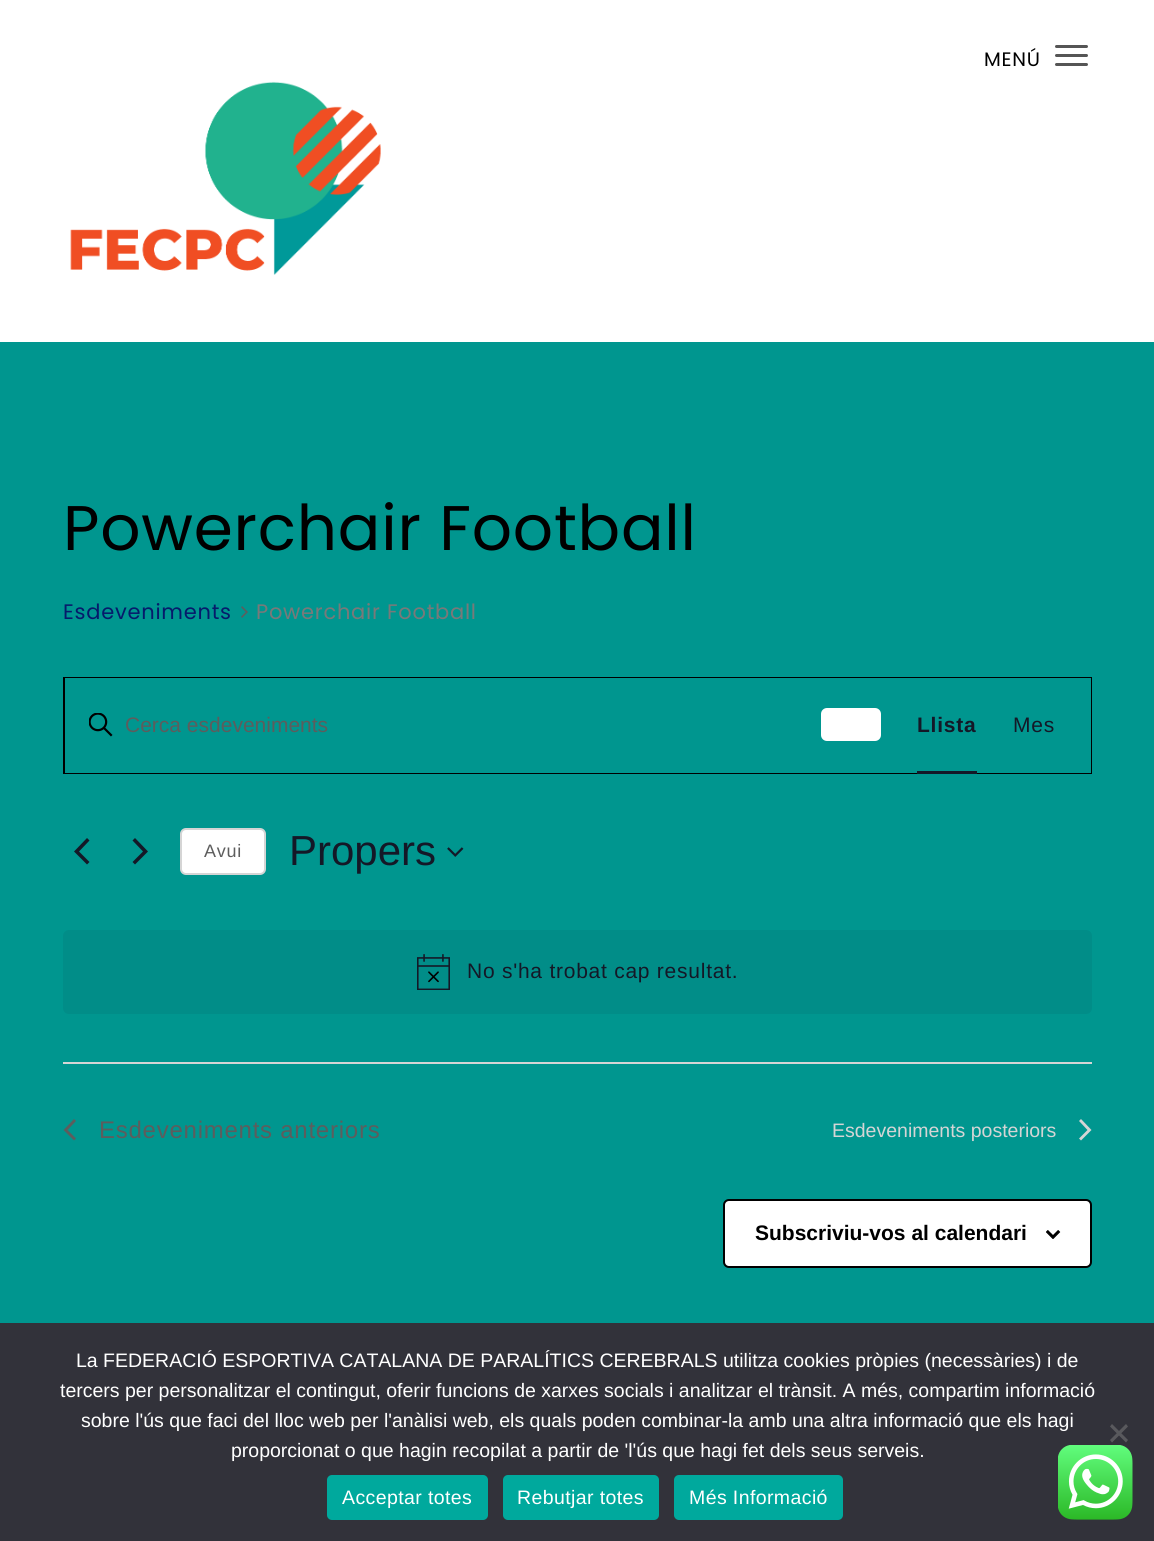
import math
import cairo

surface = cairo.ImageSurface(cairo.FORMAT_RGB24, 1154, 1541)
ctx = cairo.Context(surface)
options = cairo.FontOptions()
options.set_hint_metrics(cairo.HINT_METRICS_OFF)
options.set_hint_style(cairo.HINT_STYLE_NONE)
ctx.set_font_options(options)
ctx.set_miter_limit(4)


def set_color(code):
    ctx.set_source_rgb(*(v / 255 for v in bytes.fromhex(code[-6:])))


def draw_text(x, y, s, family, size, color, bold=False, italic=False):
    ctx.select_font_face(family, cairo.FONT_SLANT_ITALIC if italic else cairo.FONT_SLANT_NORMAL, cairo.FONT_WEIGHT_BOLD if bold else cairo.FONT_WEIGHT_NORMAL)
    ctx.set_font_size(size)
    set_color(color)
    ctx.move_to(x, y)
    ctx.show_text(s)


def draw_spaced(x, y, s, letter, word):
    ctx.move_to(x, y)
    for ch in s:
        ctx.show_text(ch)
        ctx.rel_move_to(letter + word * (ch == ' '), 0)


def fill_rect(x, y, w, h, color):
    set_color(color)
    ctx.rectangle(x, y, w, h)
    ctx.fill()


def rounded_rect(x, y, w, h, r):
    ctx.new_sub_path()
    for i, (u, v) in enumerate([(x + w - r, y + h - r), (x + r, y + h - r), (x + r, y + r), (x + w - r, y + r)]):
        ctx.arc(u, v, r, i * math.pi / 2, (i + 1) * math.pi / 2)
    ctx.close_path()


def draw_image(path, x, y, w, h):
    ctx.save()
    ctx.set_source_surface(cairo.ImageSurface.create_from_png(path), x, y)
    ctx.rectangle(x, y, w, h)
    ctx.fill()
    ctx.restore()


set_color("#ffffff")
ctx.paint()
ctx.select_font_face("Poppins")
ctx.set_font_size(19.5)
set_color("#000000")
draw_spaced(984, 66, "MENÚ", 0.75, 0)
set_color("#555555")
rounded_rect(1055, 45, 33, 3, 1.5)
ctx.fill()
rounded_rect(1055, 54, 33, 3, 1.5)
ctx.fill()
rounded_rect(1055, 63, 33, 3, 1.5)
ctx.fill()
draw_image("assets/img1.png", 70, 81, 311, 194)
fill_rect(0, 342, 1154, 981, "#00968f")
ctx.set_font_size(63)
set_color("#000000")
draw_spaced(63, 550, "Powerchair Football", 0.75, 0)
ctx.set_font_size(21)
set_color("#061a6b")
draw_spaced(63, 619, "Esdeveniments", 0.75, 0)
draw_image("assets/img2.png", 241, 606, 7, 12)
set_color("#797979")
draw_spaced(256, 619, "Powerchair Football", 0.75, 0)
ctx.rectangle(64, 678, 1027, 95)
set_color("#000000")
ctx.stroke()
fill_rect(65, 678, 1026, 95, "#00968f")
draw_image("assets/img3.png", 89, 713, 24, 24)
draw_text(125, 732, "Cerca esdeveniments", "Liberation Sans", 21, "#5d5d5d")
set_color("#ffffff")
rounded_rect(821, 708, 60, 33, 6)
ctx.fill()
ctx.select_font_face("Liberation Sans", cairo.FONT_SLANT_NORMAL, cairo.FONT_WEIGHT_BOLD)
set_color("#141827")
draw_spaced(917, 732, "Llista", 0.75, 0)
fill_rect(917, 771, 60, 3, "#141827")
ctx.select_font_face("Liberation Sans")
draw_spaced(1013, 732, "Mes", 0.75, 0)
ctx.new_path()
ctx.move_to(89.5, 862)
ctx.line_to(87, 864.5)
ctx.line_to(74, 851.5)
ctx.line_to(87, 838)
ctx.line_to(89.5, 840.5)
ctx.line_to(79, 851.5)
ctx.close_path()
ctx.fill()
ctx.new_path()
ctx.move_to(132.5, 840.5)
ctx.line_to(135, 838)
ctx.line_to(148, 851.5)
ctx.line_to(135, 864.5)
ctx.line_to(132.5, 862)
ctx.line_to(143, 851.5)
ctx.close_path()
ctx.fill()
set_color("#ffffff")
rounded_rect(181, 829, 84, 45, 5)
ctx.fill_preserve()
set_color("#d5d5d5")
ctx.stroke()
ctx.set_font_size(18)
set_color("#5d5d5d")
draw_spaced(204, 857, "Avui", 0.75, 0)
draw_text(289, 865, "Propers", "Liberation Sans", 42, "#141827")
draw_image("assets/img4.png", 447, 847, 17, 10)
set_color("#018d88")
rounded_rect(63, 930, 1029, 84, 6)
ctx.fill()
draw_image("assets/img5.png", 417, 954, 33, 36)
ctx.set_font_size(21)
set_color("#141827")
draw_spaced(467, 978, "No s'ha trobat cap resultat.", 0.75, 0)
fill_rect(63, 1062, 1029, 2, "#d5d5d5")
set_color("#5d5d5d")
ctx.new_path()
ctx.move_to(76, 1138.5)
ctx.line_to(74, 1140.5)
ctx.line_to(63.5, 1130)
ctx.line_to(74, 1119)
ctx.line_to(76, 1121)
ctx.line_to(67.5, 1130)
ctx.close_path()
ctx.fill()
ctx.set_font_size(24)
draw_spaced(99, 1138, "Esdeveniments anteriors", 0.75, 0)
draw_text(832, 1137, "Esdeveniments posteriors", "Liberation Sans", 19.5, "#d5d5d5")
ctx.new_path()
ctx.move_to(1079, 1121)
ctx.line_to(1081, 1119)
ctx.line_to(1091.5, 1130)
ctx.line_to(1081, 1140.5)
ctx.line_to(1079, 1138.5)
ctx.line_to(1087.5, 1130)
ctx.close_path()
ctx.fill()
set_color("#ffffff")
rounded_rect(724, 1200, 367, 67, 5)
ctx.fill_preserve()
set_color("#000000")
ctx.stroke()
draw_text(755, 1240, "Subscriviu-vos al calendari", "Liberation Sans", 21, "#000000", bold=True)
draw_image("assets/img6.png", 1046, 1230, 15, 9)
fill_rect(0, 1323, 1154, 218, "#32323a")
draw_text(76, 1367, "La FEDERACIÓ ESPORTIVA CATALANA DE PARALÍTICS CEREBRALS utilitza cookies pròpies (necessàries) i de", "Liberation Sans", 19.5, "#ffffff")
draw_text(60, 1397, "tercers per personalitzar el contingut, oferir funcions de xarxes socials i analitzar el trànsit. A més, compartim informació", "Liberation Sans", 19.5, "#ffffff")
draw_text(81, 1427, "sobre l'ús que faci del lloc web per l'anàlisi web, els quals poden combinar-la amb una altra informació que els hagi", "Liberation Sans", 19.5, "#ffffff")
draw_text(231, 1457, "proporcionat o que hagin recopilat a partir de 'l'ús que hagi fet dels seus serveis.", "Liberation Sans", 19.5, "#ffffff")
set_color("#59595d")
ctx.new_path()
ctx.move_to(1126, 1424)
ctx.line_to(1128, 1426.5)
ctx.line_to(1112, 1442.5)
ctx.line_to(1110, 1440)
ctx.close_path()
ctx.fill()
ctx.new_path()
ctx.move_to(1110, 1426.5)
ctx.line_to(1112, 1424)
ctx.line_to(1128, 1440)
ctx.line_to(1126, 1442.5)
ctx.close_path()
ctx.fill()
set_color("#00a99d")
rounded_rect(327, 1475, 161, 45, 5)
ctx.fill()
set_color("#ffffff")
draw_spaced(342, 1504, "Acceptar totes", 0.4, 0)
set_color("#00a99d")
rounded_rect(503, 1475, 156, 45, 5)
ctx.fill()
set_color("#ffffff")
draw_spaced(517, 1504, "Rebutjar totes", 0.4, 0)
set_color("#00a99d")
rounded_rect(674, 1475, 169, 45, 5)
ctx.fill()
set_color("#ffffff")
draw_spaced(689, 1504, "Més Informació", 0.4, 0)
draw_image("assets/img7.png", 1058, 1445, 75, 75)
surface.write_to_png("output.png")
